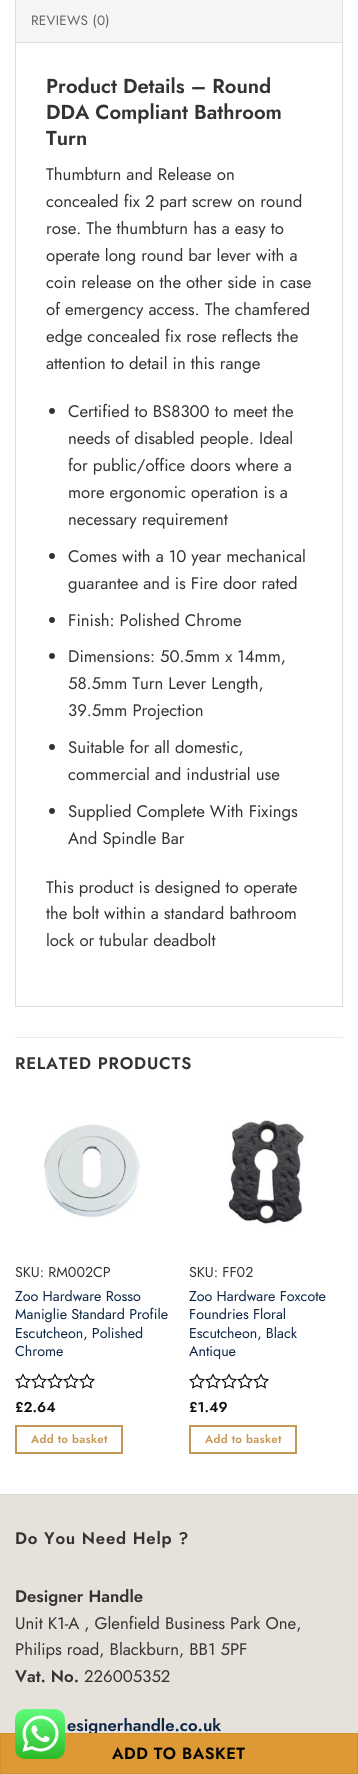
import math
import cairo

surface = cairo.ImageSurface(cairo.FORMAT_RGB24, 358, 1774)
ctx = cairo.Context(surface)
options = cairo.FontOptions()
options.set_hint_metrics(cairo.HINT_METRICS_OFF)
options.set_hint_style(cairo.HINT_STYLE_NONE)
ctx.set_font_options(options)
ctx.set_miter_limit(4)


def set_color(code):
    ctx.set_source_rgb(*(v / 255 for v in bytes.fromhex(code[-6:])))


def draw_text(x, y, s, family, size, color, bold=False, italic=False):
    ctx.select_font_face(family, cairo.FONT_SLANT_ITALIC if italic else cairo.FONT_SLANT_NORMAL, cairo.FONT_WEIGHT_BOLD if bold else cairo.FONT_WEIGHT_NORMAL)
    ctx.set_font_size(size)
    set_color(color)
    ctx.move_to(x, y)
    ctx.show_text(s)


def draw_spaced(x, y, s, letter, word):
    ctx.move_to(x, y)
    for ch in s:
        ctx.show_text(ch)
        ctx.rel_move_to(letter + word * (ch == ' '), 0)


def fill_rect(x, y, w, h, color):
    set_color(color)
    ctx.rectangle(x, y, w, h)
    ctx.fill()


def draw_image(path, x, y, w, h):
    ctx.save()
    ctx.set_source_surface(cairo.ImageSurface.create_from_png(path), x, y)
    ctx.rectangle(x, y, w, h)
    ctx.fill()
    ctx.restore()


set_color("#ffffff")
ctx.paint()
fill_rect(16, 0, 326, 42, "#f5f5f5")
fill_rect(342, 0, 1, 42, "#dddddd")
fill_rect(15, 0, 1, 42, "#dddddd")
ctx.select_font_face("Jost")
ctx.set_font_size(13.5)
set_color("#646464")
draw_spaced(31, 25, "REVIEWS (0)", 0.25, 0)
ctx.rectangle(15.5, 42.5, 327, 964)
set_color("#dddddd")
ctx.set_line_width(1)
ctx.stroke()
draw_text(46, 93, "Product Details – Round", "Jost SemiBold", 20.2, "#333333")
draw_text(46, 119, "DDA Compliant Bathroom", "Jost SemiBold", 20.2, "#333333")
draw_text(46, 145, "Turn", "Jost SemiBold", 20.2, "#333333")
draw_text(46, 180, "Thumbturn and Release on", "Jost", 16.75, "#333333")
draw_text(46, 207, "concealed fix 2 part screw on round", "Jost", 16.75, "#333333")
draw_text(46, 234, "rose. The thumbturn has a easy to", "Jost", 16.75, "#333333")
draw_text(46, 261, "operate long round bar lever with a", "Jost", 16.75, "#333333")
draw_text(46, 288, "coin release on the other side in case", "Jost", 16.75, "#333333")
draw_text(46, 315, "of emergency access. The chamfered", "Jost", 16.75, "#333333")
draw_text(46, 342, "edge concealed fix rose reflects the", "Jost", 16.75, "#333333")
draw_text(46, 369, "attention to detail in this range", "Jost", 16.75, "#333333")
ctx.new_path()
ctx.arc(52, 411, 3, 0, 2 * math.pi)
ctx.fill()
draw_text(68, 417, "Certified to BS8300 to meet the", "Jost", 16.75, "#333333")
draw_text(68, 444, "needs of disabled people. Ideal", "Jost", 16.75, "#333333")
draw_text(68, 471, "for public/office doors where a", "Jost", 16.75, "#333333")
draw_text(68, 498, "more ergonomic operation is a", "Jost", 16.75, "#333333")
draw_text(68, 525, "necessary requirement", "Jost", 16.75, "#333333")
ctx.new_path()
ctx.arc(52, 556, 3, 0, 2 * math.pi)
ctx.fill()
draw_text(68, 562, "Comes with a 10 year mechanical", "Jost", 16.75, "#333333")
draw_text(68, 589, "guarantee and is Fire door rated", "Jost", 16.75, "#333333")
ctx.new_path()
ctx.arc(52, 620, 3, 0, 2 * math.pi)
ctx.fill()
draw_text(68, 626, "Finish: Polished Chrome", "Jost", 16.75, "#333333")
ctx.new_path()
ctx.arc(52, 656, 3, 0, 2 * math.pi)
ctx.fill()
draw_text(68, 662, "Dimensions: 50.5mm x 14mm,", "Jost", 16.75, "#333333")
draw_text(68, 689, "58.5mm Turn Lever Length,", "Jost", 16.75, "#333333")
draw_text(68, 716, "39.5mm Projection", "Jost", 16.75, "#333333")
ctx.new_path()
ctx.arc(52, 747, 3, 0, 2 * math.pi)
ctx.fill()
draw_text(68, 753, "Suitable for all domestic,", "Jost", 16.75, "#333333")
draw_text(68, 780, "commercial and industrial use", "Jost", 16.75, "#333333")
ctx.new_path()
ctx.arc(52, 811, 3, 0, 2 * math.pi)
ctx.fill()
draw_text(68, 817, "Supplied Complete With Fixings", "Jost", 16.75, "#333333")
draw_text(68, 844, "And Spindle Bar", "Jost", 16.75, "#333333")
draw_text(46, 893, "This product is designed to operate", "Jost", 16.75, "#333333")
draw_text(46, 919, "the bolt within a standard bathroom", "Jost", 16.75, "#333333")
draw_text(46, 946, "lock or tubular deadbolt", "Jost", 16.75, "#333333")
fill_rect(15, 1037, 328, 1, "#ececec")
ctx.select_font_face("Jost SemiBold")
set_color("#333333")
draw_spaced(15, 1069, "RELATED PRODUCTS", 0.8, 0)
draw_image("assets/img1.png", 44, 1124, 96, 94)
draw_text(15, 1277, "SKU: RM002CP", "Jost", 14.25, "#333333")
draw_text(15, 1301, "Zoo Hardware Rosso", "Jost", 14.25, "#0c2646")
draw_text(15, 1319, "Maniglie Standard Profile", "Jost", 14.25, "#0c2646")
draw_text(15, 1338, "Escutcheon, Polished", "Jost", 14.25, "#0c2646")
draw_text(15, 1356, "Chrome", "Jost", 14.25, "#0c2646")
draw_image("assets/img2.png", 15, 1373, 80, 16)
draw_text(15, 1412, "£2.64", "Jost SemiBold", 14.25, "#111111")
ctx.rectangle(16, 1426, 106, 27)
set_color("#c49955")
ctx.set_line_width(2)
ctx.stroke()
ctx.set_font_size(11.5)
draw_spaced(31, 1443, "Add to basket", 0.3, 0)
draw_image("assets/img3.png", 226, 1120, 82, 107)
draw_text(189, 1277, "SKU: FF02", "Jost", 14.25, "#333333")
draw_text(189, 1301, "Zoo Hardware Foxcote", "Jost", 14.25, "#0c2646")
draw_text(189, 1319, "Foundries Floral", "Jost", 14.25, "#0c2646")
draw_text(189, 1338, "Escutcheon, Black", "Jost", 14.25, "#0c2646")
draw_text(189, 1356, "Antique", "Jost", 14.25, "#0c2646")
draw_image("assets/img2.png", 189, 1373, 80, 16)
draw_text(189, 1412, "£1.49", "Jost SemiBold", 14.25, "#111111")
ctx.rectangle(190, 1426, 106, 27)
set_color("#c49955")
ctx.stroke()
ctx.set_font_size(11.5)
draw_spaced(205, 1443, "Add to basket", 0.3, 0)
fill_rect(0, 1495, 358, 238, "#e6e1db")
draw_text(67, 1731, "esignerhandle.co.uk", "Jost SemiBold", 16.75, "#0c2646")
set_color("#dd9933")
ctx.rectangle(0.5, 1733.5, 357, 40)
ctx.fill_preserve()
set_color("#d29130")
ctx.set_line_width(1)
ctx.stroke()
ctx.set_font_size(16.25)
set_color("#000000")
draw_spaced(112, 1759, "ADD TO BASKET", 0.5, 0)
fill_rect(0, 1494, 358, 1, "#dbd6d0")
ctx.set_font_size(16.75)
set_color("#333333")
draw_spaced(15, 1544, "Do You Need Help ?", 0.8, 0)
draw_text(15, 1602, "Designer Handle", "Jost SemiBold", 16.75, "#333333")
draw_text(15, 1629, "Unit K1-A , Glenfield Business Park One,", "Jost", 16.75, "#333333")
draw_text(15, 1655, "Philips road, Blackburn, BB1 5PF", "Jost", 16.75, "#333333")
draw_text(15, 1682, "Vat. No.", "Jost SemiBold", 16.75, "#333333")
draw_text(84, 1682, "226005352", "Jost", 16.75, "#333333")
draw_image("assets/img4.png", 15, 1709, 50, 50)
surface.write_to_png("output.png")
